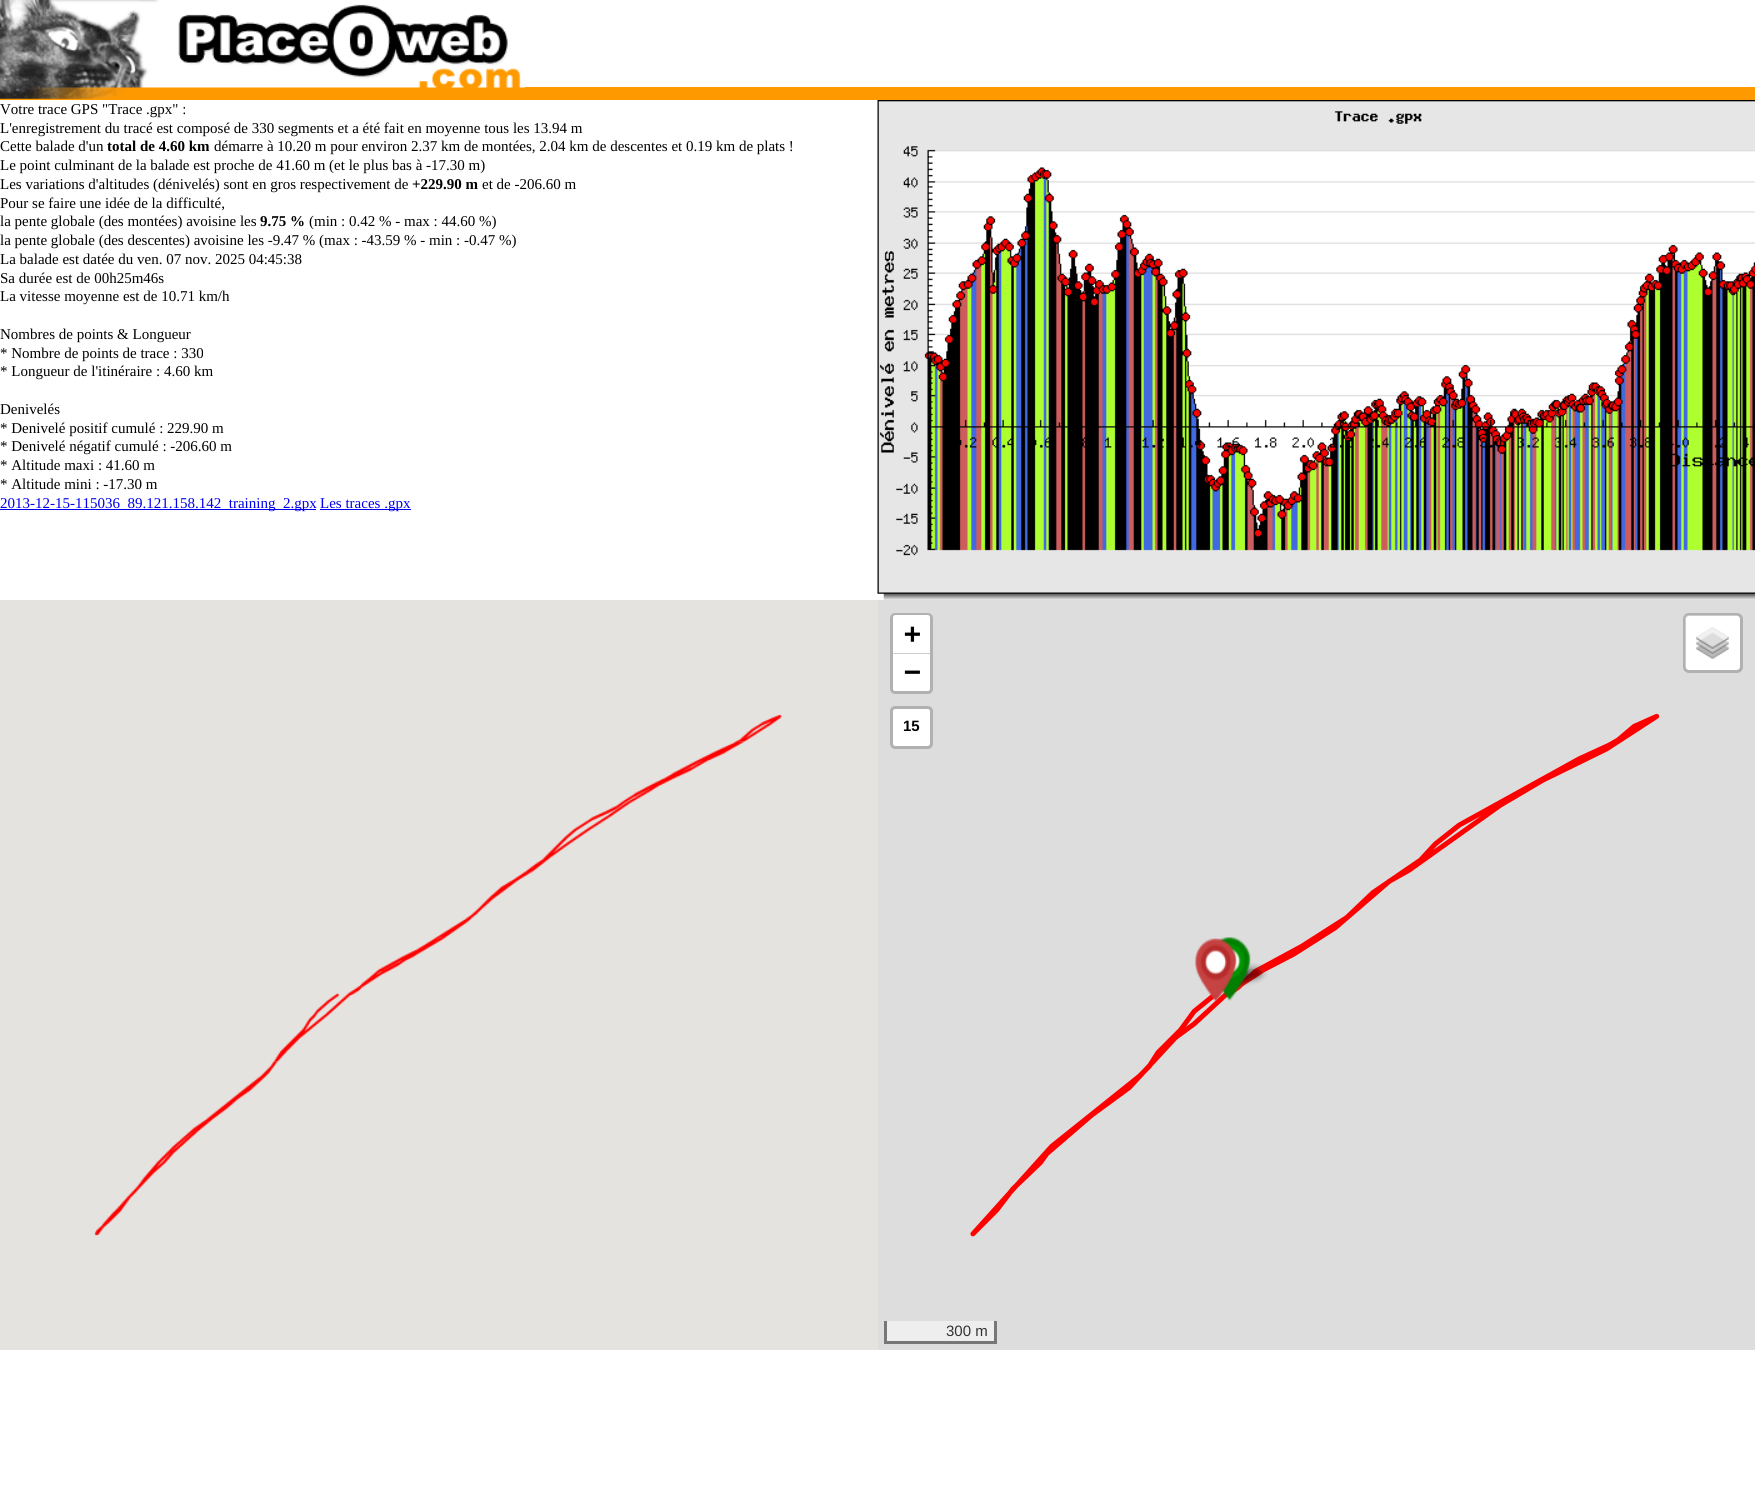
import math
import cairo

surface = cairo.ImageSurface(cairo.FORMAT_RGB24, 1755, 1507)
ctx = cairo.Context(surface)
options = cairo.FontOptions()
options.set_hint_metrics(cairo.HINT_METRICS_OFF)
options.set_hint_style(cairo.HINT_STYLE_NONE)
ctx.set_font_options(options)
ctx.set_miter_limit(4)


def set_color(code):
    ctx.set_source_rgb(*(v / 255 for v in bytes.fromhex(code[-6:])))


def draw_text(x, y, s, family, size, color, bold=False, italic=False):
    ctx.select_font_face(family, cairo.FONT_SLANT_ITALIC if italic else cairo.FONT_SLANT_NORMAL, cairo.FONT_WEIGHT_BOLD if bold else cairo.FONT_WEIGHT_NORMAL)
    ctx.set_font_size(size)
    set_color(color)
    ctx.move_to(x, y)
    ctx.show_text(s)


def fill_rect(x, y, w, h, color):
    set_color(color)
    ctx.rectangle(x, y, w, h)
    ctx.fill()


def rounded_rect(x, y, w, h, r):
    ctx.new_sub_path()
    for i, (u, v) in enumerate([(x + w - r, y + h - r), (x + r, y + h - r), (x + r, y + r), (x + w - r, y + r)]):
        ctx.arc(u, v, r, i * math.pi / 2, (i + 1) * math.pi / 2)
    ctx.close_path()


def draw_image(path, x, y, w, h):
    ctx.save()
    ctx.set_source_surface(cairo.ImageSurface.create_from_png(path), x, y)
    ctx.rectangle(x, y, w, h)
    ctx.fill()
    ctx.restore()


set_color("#ffffff")
ctx.paint()
fill_rect(0, 87, 1755, 13, "#ff9900")
draw_image("assets/img1.png", 0, 0, 525, 99)
draw_text(0, 114, "Votre trace GPS \"Trace .gpx\" :", "Liberation Serif", 15, "#000000")
draw_text(0, 133, "L'enregistrement du tracé est composé de 330 segments et a été fait en moyenne tous les 13.94 m", "Liberation Serif", 15, "#000000")
draw_text(0, 151, "Cette balade d'un", "Liberation Serif", 15, "#000000")
draw_text(107, 151, "total de 4.60 km", "Liberation Serif", 15, "#000000", bold=True)
draw_text(214, 151, "démarre à 10.20 m pour environ 2.37 km de montées, 2.04 km de descentes et 0.19 km de plats !", "Liberation Serif", 15, "#000000")
draw_text(0, 170, "Le point culminant de la balade est proche de 41.60 m (et le plus bas à -17.30 m)", "Liberation Serif", 15, "#000000")
draw_text(0, 189, "Les variations d'altitudes (dénivelés) sont en gros respectivement de", "Liberation Serif", 15, "#000000")
draw_text(412, 189, "+229.90 m", "Liberation Serif", 15, "#000000", bold=True)
draw_text(482, 189, "et de -206.60 m", "Liberation Serif", 15, "#000000")
draw_text(0, 208, "Pour se faire une idée de la difficulté,", "Liberation Serif", 15, "#000000")
draw_text(0, 226, "la pente globale (des montées) avoisine les", "Liberation Serif", 15, "#000000")
draw_text(260, 226, "9.75 %", "Liberation Serif", 15, "#000000", bold=True)
draw_text(309, 226, "(min : 0.42 % - max : 44.60 %)", "Liberation Serif", 15, "#000000")
draw_text(0, 245, "la pente globale (des descentes) avoisine les -9.47 % (max : -43.59 % - min : -0.47 %)", "Liberation Serif", 15, "#000000")
draw_text(0, 264, "La balade est datée du ven. 07 nov. 2025 04:45:38", "Liberation Serif", 15, "#000000")
draw_text(0, 283, "Sa durée est de 00h25m46s", "Liberation Serif", 15, "#000000")
draw_text(0, 301, "La vitesse moyenne est de 10.71 km/h", "Liberation Serif", 15, "#000000")
draw_text(0, 339, "Nombres de points & Longueur", "Liberation Serif", 15, "#000000")
draw_text(0, 358, "* Nombre de points de trace : 330", "Liberation Serif", 15, "#000000")
draw_text(0, 376, "* Longueur de l'itinéraire : 4.60 km", "Liberation Serif", 15, "#000000")
draw_text(0, 414, "Denivelés", "Liberation Serif", 15, "#000000")
draw_text(0, 433, "* Denivelé positif cumulé : 229.90 m", "Liberation Serif", 15, "#000000")
draw_text(0, 451, "* Denivelé négatif cumulé : -206.60 m", "Liberation Serif", 15, "#000000")
draw_text(0, 470, "* Altitude maxi : 41.60 m", "Liberation Serif", 15, "#000000")
draw_text(0, 489, "* Altitude mini : -17.30 m", "Liberation Serif", 15, "#000000")
fill_rect(0, 509, 316, 1, "#0000ee")
draw_text(0, 508, "2013-12-15-115036_89.121.158.142_training_2.gpx", "Liberation Serif", 15, "#0000ee")
fill_rect(320, 509, 91, 1, "#0000ee")
draw_text(320, 508, "Les traces .gpx", "Liberation Serif", 15, "#0000ee")
draw_image("assets/img2.png", 877, 100, 878, 500)
fill_rect(0, 600, 878, 750, "#e5e3df")
draw_image("assets/img4.png", 500, 741, 245, 153)
draw_image("assets/img3.png", 736, 714, 46, 28)
draw_image("assets/img5.png", 273, 887, 227, 175)
draw_image("assets/img6.png", 180, 1061, 98, 87)
draw_image("assets/img7.png", 94, 1140, 86, 96)
fill_rect(878, 600, 877, 750, "#dddddd")
rounded_rect(891.5, 614.5, 40, 78, 3.5)
set_color("#b1b1b1")
ctx.set_line_width(3)
ctx.stroke()
set_color("#ffffff")
ctx.new_path()
ctx.move_to(895.5, 615)
ctx.line_to(927.5, 615)
ctx.curve_to(929, 615, 930, 616, 930, 617.5)
ctx.line_to(930, 654)
ctx.line_to(893, 654)
ctx.line_to(893, 617.5)
ctx.curve_to(893, 616, 894, 615, 895.5, 615)
ctx.close_path()
ctx.fill()
fill_rect(893, 653, 37, 1, "#cccccc")
draw_text(904, 643, "+", "DejaVu Sans Mono", 28, "#000000", bold=True)
set_color("#ffffff")
ctx.new_path()
ctx.move_to(893, 654)
ctx.line_to(930, 654)
ctx.line_to(930, 688.5)
ctx.curve_to(930, 690, 929, 691, 927.5, 691)
ctx.line_to(895.5, 691)
ctx.curve_to(894, 691, 893, 690, 893, 688.5)
ctx.close_path()
ctx.fill()
draw_text(904, 681, "−", "DejaVu Sans Mono", 28, "#000000", bold=True)
set_color("#ffffff")
rounded_rect(893, 709, 37, 37, 2.5)
ctx.fill()
rounded_rect(891.5, 707.5, 40, 40, 3.5)
ctx.set_source_rgba(0, 0, 0, 0.2)
ctx.stroke()
draw_text(903, 731, "15", "Liberation Sans", 15, "#000000", bold=True)
set_color("#ffffff")
rounded_rect(1685, 615, 55, 55, 4)
ctx.fill()
rounded_rect(1684.5, 614.5, 57, 57, 4.5)
ctx.set_source_rgba(0, 0, 0, 0.2)
ctx.stroke()
draw_image("assets/img8.png", 1696, 627, 33, 32)
fill_rect(887, 1321, 107, 20, "#eeeeee")
fill_rect(994, 1321, 3, 23, "#777777")
fill_rect(884, 1341, 112, 3, "#777777")
fill_rect(884, 1321, 3, 23, "#777777")
draw_text(946, 1336, "300 m", "Liberation Sans", 15, "#333333")
draw_image("assets/img9.png", 970, 713, 690, 524)
draw_image("assets/img12.png", 1226, 963, 42, 32)
draw_image("assets/img13.png", 1212, 965, 42, 31)
draw_image("assets/img10.png", 1215, 937, 36, 64)
draw_image("assets/img11.png", 1195, 938, 42, 64)
surface.write_to_png("output.png")
